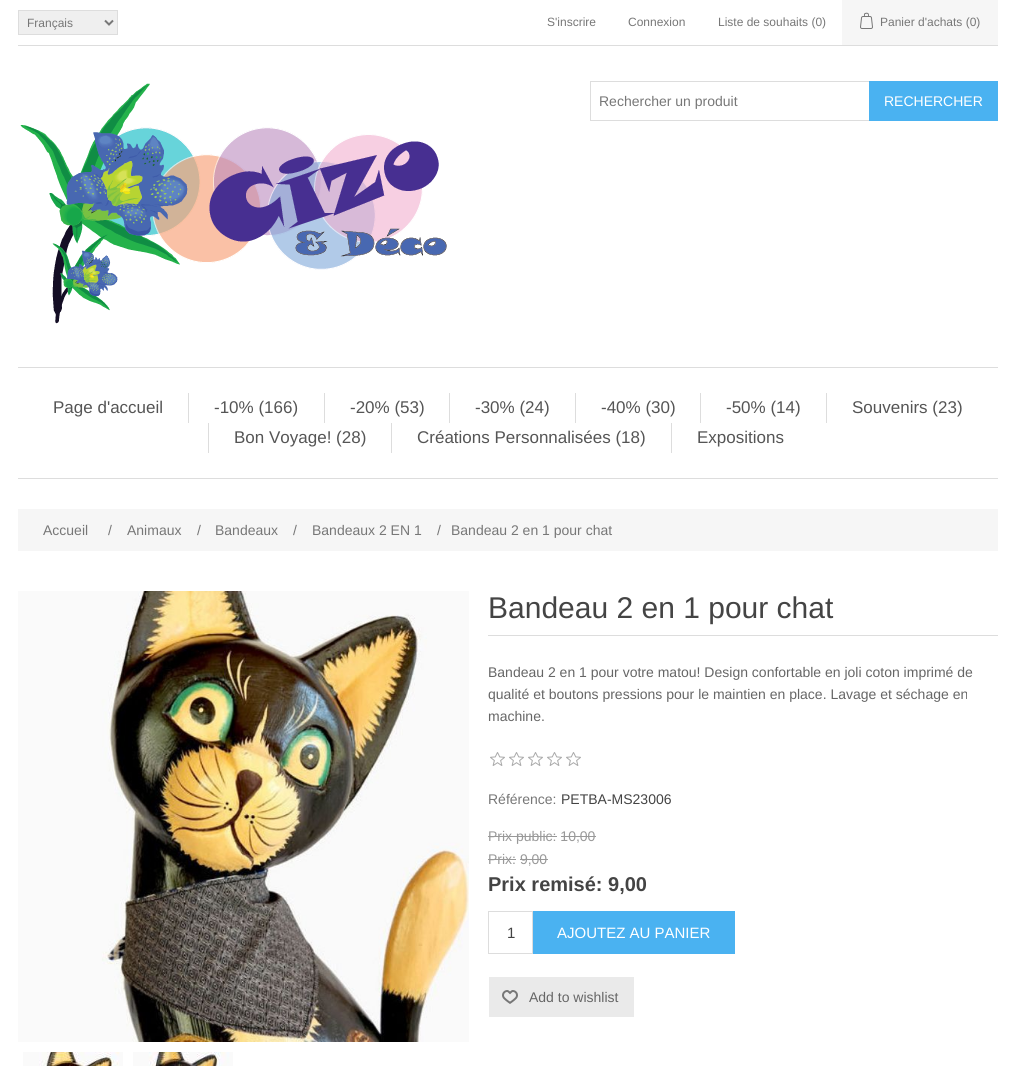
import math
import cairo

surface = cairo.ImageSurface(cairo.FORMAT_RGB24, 1016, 1066)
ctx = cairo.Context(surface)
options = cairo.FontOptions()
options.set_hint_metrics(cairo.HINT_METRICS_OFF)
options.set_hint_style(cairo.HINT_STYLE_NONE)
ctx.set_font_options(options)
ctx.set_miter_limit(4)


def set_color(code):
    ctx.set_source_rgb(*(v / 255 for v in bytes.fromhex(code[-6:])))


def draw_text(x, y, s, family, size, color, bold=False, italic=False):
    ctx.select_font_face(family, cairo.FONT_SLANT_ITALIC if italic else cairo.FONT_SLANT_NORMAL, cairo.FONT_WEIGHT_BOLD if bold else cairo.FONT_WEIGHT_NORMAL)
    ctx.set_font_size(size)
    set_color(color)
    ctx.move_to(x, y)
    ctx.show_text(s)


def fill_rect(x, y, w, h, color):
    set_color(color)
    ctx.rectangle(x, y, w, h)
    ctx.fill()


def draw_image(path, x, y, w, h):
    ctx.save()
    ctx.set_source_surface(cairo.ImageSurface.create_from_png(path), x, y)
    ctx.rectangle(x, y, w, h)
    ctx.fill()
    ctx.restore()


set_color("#ffffff")
ctx.paint()
fill_rect(18, 45, 980, 1, "#dddddd")
set_color("#efefef")
ctx.rectangle(18.5, 10.5, 99, 24)
ctx.fill_preserve()
set_color("#dddddd")
ctx.set_line_width(1)
ctx.stroke()
ctx.new_path()
ctx.move_to(105, 20.5)
ctx.line_to(109, 24.5)
ctx.line_to(113, 20.5)
set_color("#777777")
ctx.set_line_width(2)
ctx.stroke()
draw_text(27, 27, "Français", "Liberation Sans", 12, "#777777")
draw_text(547, 26, "S'inscrire", "Liberation Sans", 12, "#777777")
draw_text(628, 26, "Connexion", "Liberation Sans", 12, "#777777")
draw_text(718, 26, "Liste de souhaits (0)", "Liberation Sans", 12, "#777777")
fill_rect(842, 0, 156, 45, "#f6f6f6")
draw_image("assets/img1.png", 860, 12, 13, 17)
draw_text(880, 26, "Panier d'achats (0)", "Liberation Sans", 12, "#777777")
draw_image("assets/img2.png", 20, 83, 427, 241)
ctx.rectangle(590.5, 81.5, 279, 39)
set_color("#dddddd")
ctx.set_line_width(1)
ctx.stroke()
draw_text(599, 106, "Rechercher un produit", "Liberation Sans", 14, "#777777")
fill_rect(869, 81, 129, 40, "#4ab2f1")
draw_text(884, 106, "RECHERCHER", "Liberation Sans", 14, "#ffffff")
fill_rect(18, 367, 980, 1, "#dddddd")
fill_rect(18, 478, 980, 1, "#dddddd")
draw_text(53, 413, "Page d'accueil", "Liberation Sans", 17, "#555555")
fill_rect(188, 393, 1, 30, "#dddddd")
draw_text(214, 413, "-10% (166)", "Liberation Sans", 17, "#555555")
fill_rect(324, 393, 1, 30, "#dddddd")
draw_text(350, 413, "-20% (53)", "Liberation Sans", 17, "#555555")
fill_rect(449, 393, 1, 30, "#dddddd")
draw_text(475, 413, "-30% (24)", "Liberation Sans", 17, "#555555")
fill_rect(575, 393, 1, 30, "#dddddd")
draw_text(601, 413, "-40% (30)", "Liberation Sans", 17, "#555555")
fill_rect(700, 393, 1, 30, "#dddddd")
draw_text(726, 413, "-50% (14)", "Liberation Sans", 17, "#555555")
fill_rect(826, 393, 1, 30, "#dddddd")
draw_text(852, 413, "Souvenirs (23)", "Liberation Sans", 17, "#555555")
fill_rect(208, 423, 1, 30, "#dddddd")
draw_text(234, 443, "Bon Voyage! (28)", "Liberation Sans", 17, "#555555")
fill_rect(391, 423, 1, 30, "#dddddd")
draw_text(417, 443, "Créations Personnalisées (18)", "Liberation Sans", 17, "#555555")
fill_rect(671, 423, 1, 30, "#dddddd")
draw_text(697, 443, "Expositions", "Liberation Sans", 17, "#555555")
fill_rect(18, 509, 980, 42, "#f6f6f6")
draw_text(43, 535, "Accueil", "Liberation Sans", 14, "#777777")
draw_text(108, 535, "/", "Liberation Sans", 14, "#777777")
draw_text(127, 535, "Animaux", "Liberation Sans", 14, "#777777")
draw_text(197, 535, "/", "Liberation Sans", 14, "#777777")
draw_text(215, 535, "Bandeaux", "Liberation Sans", 14, "#777777")
draw_text(293, 535, "/", "Liberation Sans", 14, "#777777")
draw_text(312, 535, "Bandeaux 2 EN 1", "Liberation Sans", 14, "#777777")
draw_text(437, 535, "/", "Liberation Sans", 14, "#777777")
draw_text(451, 535, "Bandeau 2 en 1 pour chat", "Liberation Sans", 14, "#777777")
draw_image("assets/img3.png", 18, 591, 451, 451)
draw_image("assets/img4.png", 23, 1052, 100, 14)
draw_image("assets/img5.png", 133, 1052, 100, 14)
fill_rect(488, 635, 510, 1, "#dddddd")
draw_text(488, 618, "Bandeau 2 en 1 pour chat", "Liberation Sans", 30, "#444444")
draw_text(488, 677, "Bandeau 2 en 1 pour votre matou! Design confortable en joli coton imprimé de", "Liberation Sans", 14, "#666666")
draw_text(488, 699, "qualité et boutons pressions pour le maintien en place. Lavage et séchage en", "Liberation Sans", 14, "#666666")
draw_text(488, 721, "machine.", "Liberation Sans", 14, "#666666")
draw_image("assets/img6.png", 490, 752, 91, 14)
draw_text(488, 804, "Référence:", "Liberation Sans", 14, "#777777")
draw_text(561, 804, "PETBA-MS23006", "Liberation Sans", 14, "#444444")
draw_text(488, 841, "Prix public: 10,00", "Liberation Sans", 14, "#999999")
fill_rect(488, 836, 69, 1, "#999999")
fill_rect(561, 836, 35, 1, "#999999")
draw_text(488, 864, "Prix: 9,00", "Liberation Sans", 14, "#999999")
fill_rect(488, 859, 28, 1, "#999999")
fill_rect(520, 859, 28, 1, "#999999")
draw_text(488, 891, "Prix remisé: 9,00", "Liberation Sans", 20, "#444444", bold=True)
ctx.rectangle(488.5, 911.5, 44, 42)
set_color("#dddddd")
ctx.stroke()
draw_text(507, 938, "1", "Liberation Sans", 15, "#444444")
fill_rect(533, 911, 202, 43, "#4ab2f1")
draw_text(557, 938, "AJOUTEZ AU PANIER", "Liberation Sans", 15, "#ffffff")
fill_rect(489, 977, 145, 40, "#eaeaea")
draw_image("assets/img7.png", 502, 990, 16, 14)
draw_text(529, 1002, "Add to wishlist", "Liberation Sans", 14, "#666666")
surface.write_to_png("output.png")
